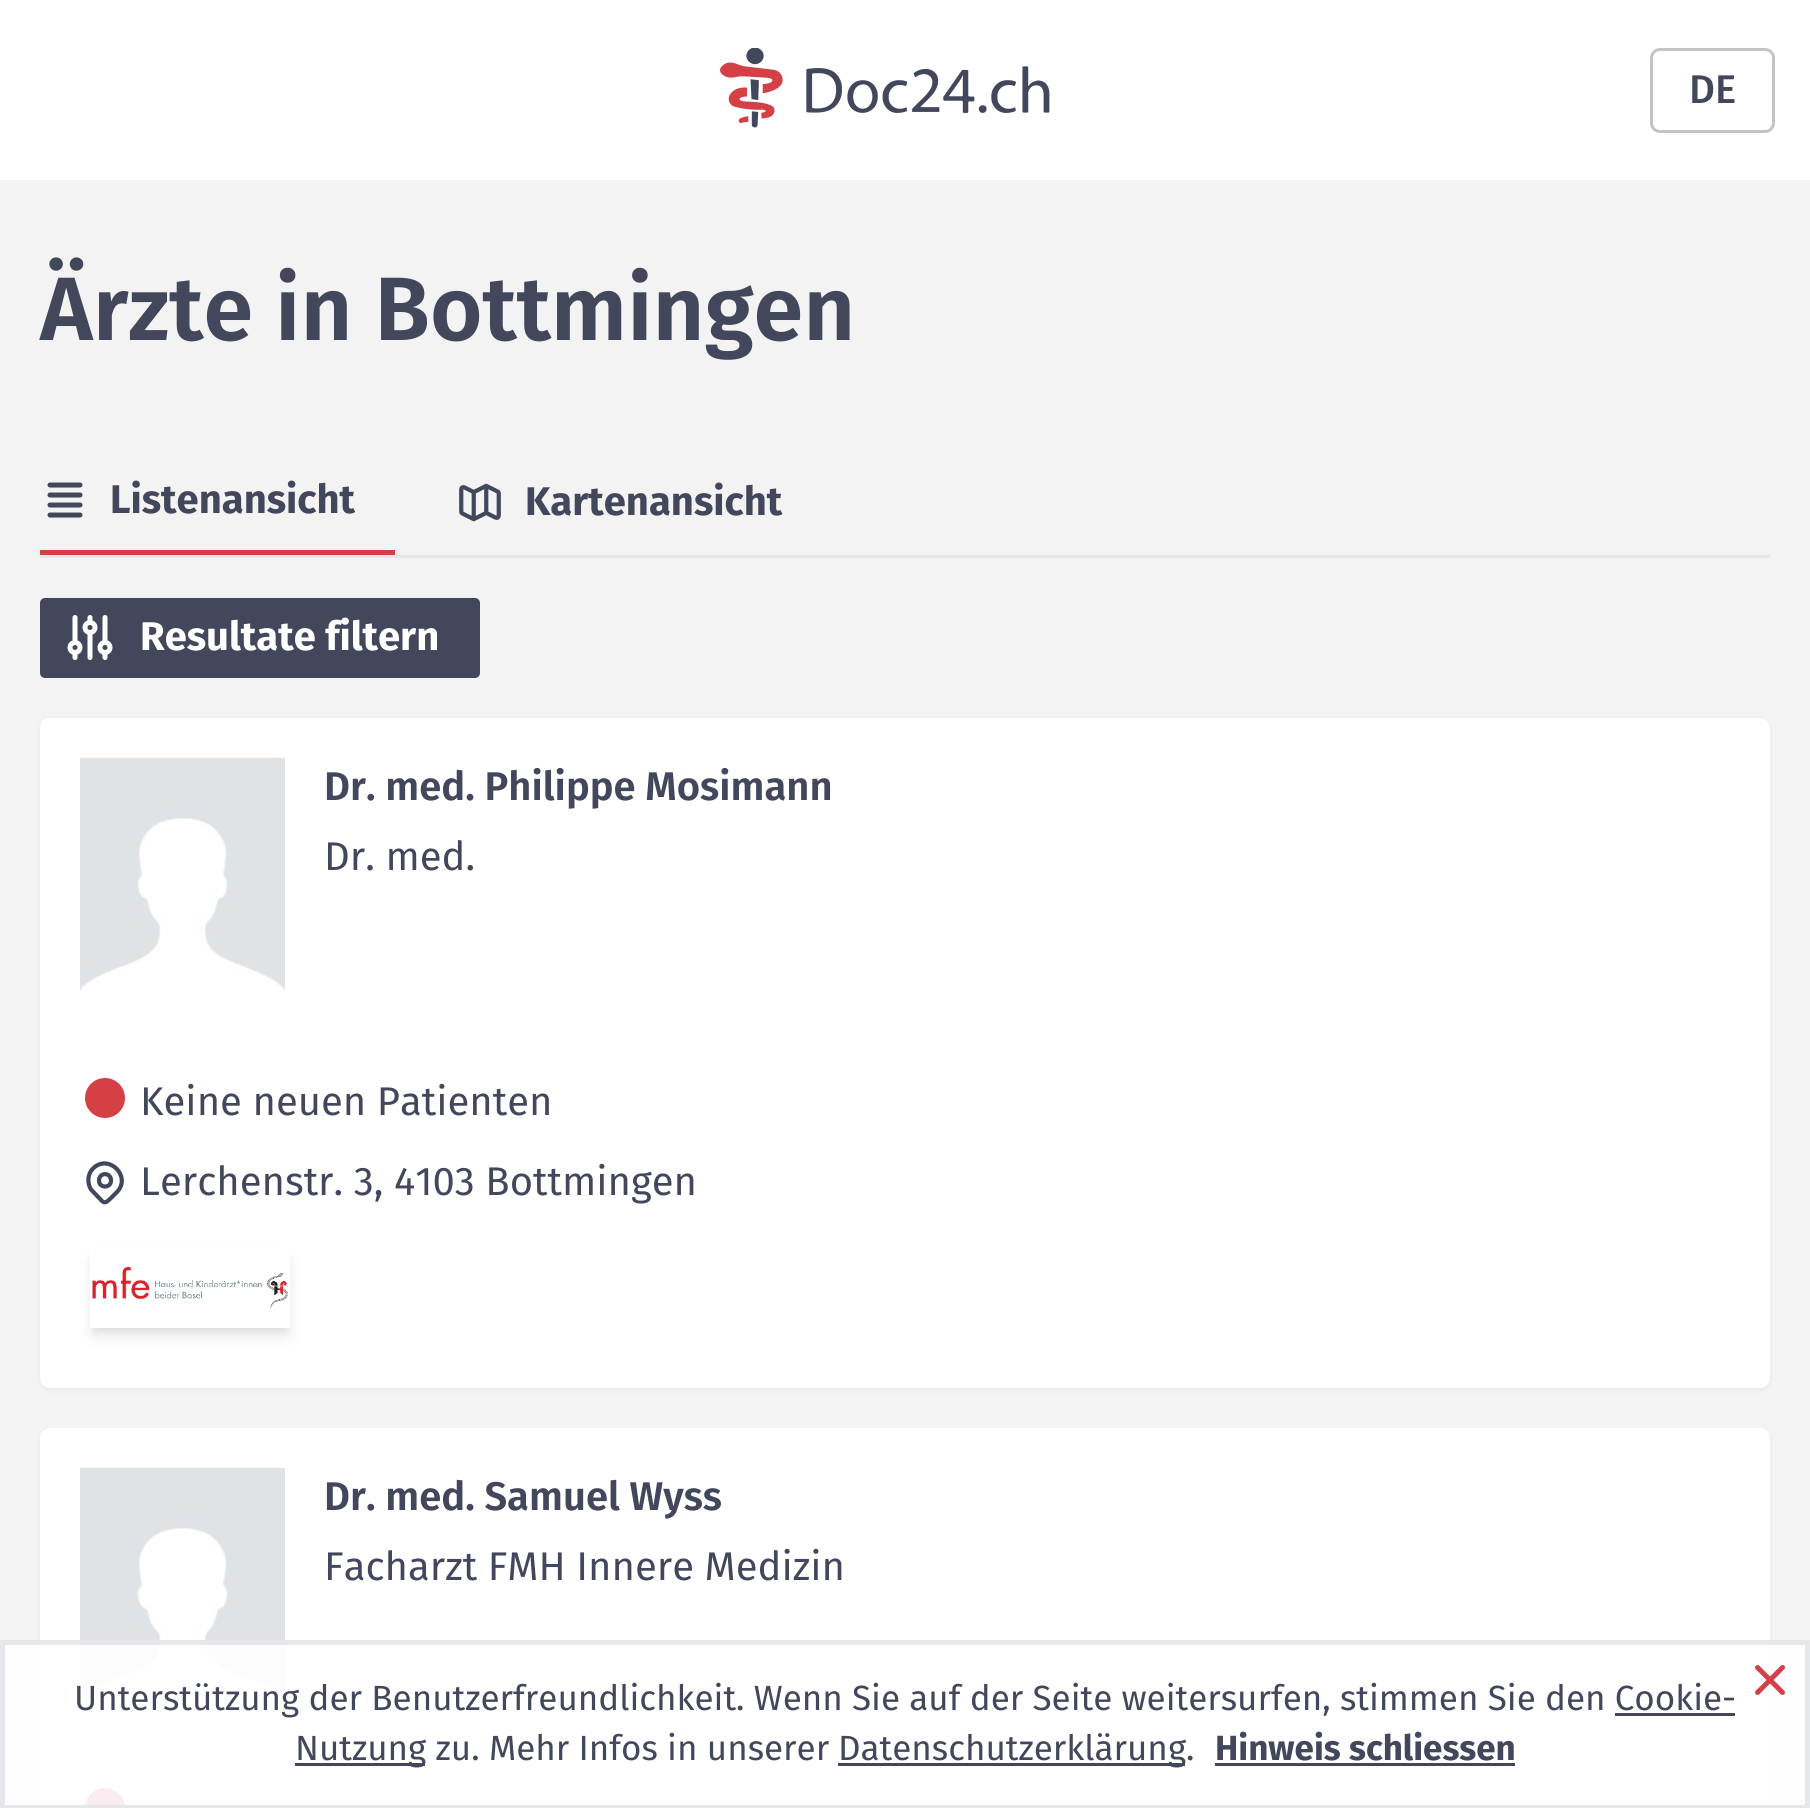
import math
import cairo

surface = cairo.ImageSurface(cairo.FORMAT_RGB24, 1810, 1808)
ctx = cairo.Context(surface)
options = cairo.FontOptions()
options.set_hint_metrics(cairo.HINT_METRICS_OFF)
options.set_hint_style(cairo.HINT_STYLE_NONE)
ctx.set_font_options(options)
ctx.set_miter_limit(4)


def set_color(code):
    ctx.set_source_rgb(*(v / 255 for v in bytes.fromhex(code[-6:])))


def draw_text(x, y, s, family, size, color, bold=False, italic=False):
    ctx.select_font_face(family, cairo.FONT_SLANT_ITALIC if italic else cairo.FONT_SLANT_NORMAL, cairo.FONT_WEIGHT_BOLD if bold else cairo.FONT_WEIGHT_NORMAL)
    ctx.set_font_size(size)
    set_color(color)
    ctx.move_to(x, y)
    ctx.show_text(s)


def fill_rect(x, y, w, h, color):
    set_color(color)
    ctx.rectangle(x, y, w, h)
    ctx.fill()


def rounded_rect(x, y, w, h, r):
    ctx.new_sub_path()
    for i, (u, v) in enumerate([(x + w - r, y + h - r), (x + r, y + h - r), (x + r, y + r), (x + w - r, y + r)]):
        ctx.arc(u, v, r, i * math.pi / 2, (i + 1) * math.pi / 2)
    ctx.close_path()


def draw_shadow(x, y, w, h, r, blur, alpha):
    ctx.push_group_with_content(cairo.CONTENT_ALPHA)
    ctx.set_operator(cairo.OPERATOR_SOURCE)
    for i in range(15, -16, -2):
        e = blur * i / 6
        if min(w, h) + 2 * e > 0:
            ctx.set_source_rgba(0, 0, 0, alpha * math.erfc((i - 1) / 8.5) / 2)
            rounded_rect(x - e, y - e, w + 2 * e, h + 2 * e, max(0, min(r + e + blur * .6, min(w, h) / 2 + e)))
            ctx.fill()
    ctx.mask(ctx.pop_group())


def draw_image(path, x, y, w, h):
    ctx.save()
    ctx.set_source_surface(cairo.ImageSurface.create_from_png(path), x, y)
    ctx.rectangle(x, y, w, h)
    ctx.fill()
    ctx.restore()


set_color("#f3f3f3")
ctx.paint()
fill_rect(0, 0, 1810, 180, "#ffffff")
draw_image("assets/img1.png", 720, 48, 330, 80)
rounded_rect(1651.5, 49.5, 122, 82, 8.5)
set_color("#c4c4c4")
ctx.set_line_width(3)
ctx.stroke()
draw_text(1689, 103, "DE", "Fira Sans Medium", 40, "#42475b")
draw_text(40, 340, "Ärzte in Bottmingen", "Fira Sans SemiBold", 90, "#42475b")
fill_rect(40, 555, 1730, 3, "#e5e7eb")
fill_rect(40, 550, 355, 5, "#d44045")
draw_image("assets/img2.png", 47, 482, 36, 36)
draw_text(110, 513, "Listenansicht", "Fira Sans", 40, "#42475b", bold=True)
draw_image("assets/img3.png", 459, 483, 42, 39)
draw_text(525, 515, "Kartenansicht", "Fira Sans", 40, "#42475b", bold=True)
rounded_rect(40, 598, 440, 80, 5)
ctx.fill()
draw_image("assets/img4.png", 67, 615, 46, 45)
draw_text(140, 650, "Resultate filtern", "Fira Sans", 40, "#ffffff", bold=True)
set_color("#000000")
draw_shadow(40, 720, 1730, 670, 10, 2.5, 0.05)
set_color("#ffffff")
rounded_rect(40, 718, 1730, 670, 10)
ctx.fill()
draw_image("assets/img5.png", 80, 757, 205, 234)
draw_text(324, 800, "Dr. med. Philippe Mosimann", "Fira Sans SemiBold", 40, "#42475b")
draw_text(324, 870, "Dr. med.", "Fira Sans", 40, "#42475b")
set_color("#d44045")
ctx.new_path()
ctx.arc(105, 1098, 20, 0, 2 * math.pi)
ctx.fill()
draw_text(140, 1115, "Keine neuen Patienten", "Fira Sans", 40, "#42475b")
ctx.new_path()
ctx.move_to(117, 1192)
ctx.line_to(111, 1198)
ctx.curve_to(108.5, 1200, 106, 1204, 102.5, 1201.5)
ctx.line_to(91, 1189.5)
ctx.curve_to(87, 1183, 87.5, 1174, 93, 1168.5)
ctx.curve_to(108.5, 1153, 132, 1176.5, 117, 1192)
ctx.close_path()
ctx.move_to(111, 1180.5)
ctx.curve_to(111, 1188.5, 99, 1188.5, 99, 1180.5)
ctx.curve_to(99, 1172, 111, 1172, 111, 1180.5)
ctx.close_path()
ctx.set_line_width(4.2)
ctx.set_line_cap(cairo.LINE_CAP_ROUND)
ctx.set_line_join(cairo.LINE_JOIN_ROUND)
ctx.stroke()
draw_text(140, 1195, "Lerchenstr. 3, 4103 Bottmingen", "Fira Sans", 40, "#42475b")
ctx.save()
ctx.set_fill_rule(cairo.FILL_RULE_EVEN_ODD)
ctx.new_path()
ctx.move_to(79, 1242)
ctx.line_to(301, 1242)
ctx.line_to(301, 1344)
ctx.line_to(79, 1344)
ctx.close_path()
ctx.move_to(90, 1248)
ctx.line_to(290, 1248)
ctx.line_to(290, 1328)
ctx.line_to(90, 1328)
ctx.close_path()
ctx.clip()
set_color("#000000")
draw_shadow(95, 1258, 190, 70, 0, 5, 0.1)
ctx.restore()
ctx.save()
ctx.set_fill_rule(cairo.FILL_RULE_EVEN_ODD)
ctx.new_path()
ctx.move_to(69, 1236)
ctx.line_to(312, 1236)
ctx.line_to(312, 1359)
ctx.line_to(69, 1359)
ctx.close_path()
ctx.move_to(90, 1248)
ctx.line_to(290, 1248)
ctx.line_to(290, 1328)
ctx.line_to(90, 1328)
ctx.close_path()
ctx.clip()
set_color("#000000")
draw_shadow(93, 1260, 195, 75, 0, 7.5, 0.1)
ctx.restore()
draw_image("assets/img6.png", 90, 1266, 198, 43)
set_color("#000000")
draw_shadow(40, 1430, 1730, 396, 10, 2.5, 0.05)
set_color("#ffffff")
rounded_rect(40, 1428, 1730, 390, 10)
ctx.fill()
draw_image("assets/img7.png", 80, 1467, 205, 234)
draw_text(324, 1510, "Dr. med. Samuel Wyss", "Fira Sans SemiBold", 40, "#42475b")
draw_text(324, 1580, "Facharzt FMH Innere Medizin", "Fira Sans", 40, "#42475b")
set_color("#d44045")
ctx.new_path()
ctx.arc(105, 1808, 20, 0, 2 * math.pi)
ctx.fill()
ctx.set_source_rgba(1, 1, 1, 0.9)
ctx.rectangle(2.5, 1642.5, 1805, 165)
ctx.fill_preserve()
set_color("#e5e7eb")
ctx.set_line_width(5)
ctx.set_line_cap(cairo.LINE_CAP_BUTT)
ctx.set_line_join(cairo.LINE_JOIN_MITER)
ctx.stroke()
draw_text(74, 1710, "Unterstützung der Benutzerfreundlichkeit. Wenn Sie auf der Seite weitersurfen, stimmen Sie den Cookie-", "Fira Sans", 35, "#42475b")
fill_rect(1615, 1713, 120, 3, "#42475b")
fill_rect(295, 1763, 130, 3, "#42475b")
draw_text(295, 1760, "Nutzung zu. Mehr Infos in unserer", "Fira Sans", 35, "#42475b")
fill_rect(838, 1763, 347, 3, "#42475b")
draw_text(838, 1760, "Datenschutzerklärung.", "Fira Sans", 35, "#42475b")
draw_text(1215, 1760, "Hinweis schliessen", "Fira Sans", 35, "#42475b", bold=True)
fill_rect(1215, 1763, 300, 3, "#42475b")
draw_image("assets/img8.png", 1755, 1665, 30, 30)
surface.write_to_png("output.png")
